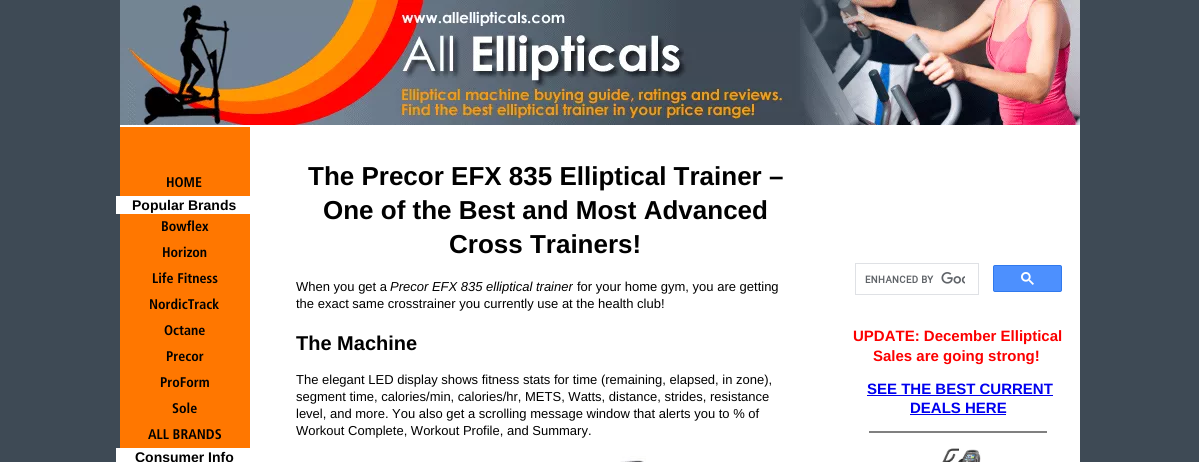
import math
import cairo

surface = cairo.ImageSurface(cairo.FORMAT_RGB24, 1199, 462)
ctx = cairo.Context(surface)
options = cairo.FontOptions()
options.set_hint_metrics(cairo.HINT_METRICS_OFF)
options.set_hint_style(cairo.HINT_STYLE_NONE)
ctx.set_font_options(options)
ctx.set_miter_limit(4)


def set_color(code):
    ctx.set_source_rgb(*(v / 255 for v in bytes.fromhex(code[-6:])))


def draw_text(x, y, s, family, size, color, bold=False, italic=False):
    ctx.select_font_face(family, cairo.FONT_SLANT_ITALIC if italic else cairo.FONT_SLANT_NORMAL, cairo.FONT_WEIGHT_BOLD if bold else cairo.FONT_WEIGHT_NORMAL)
    ctx.set_font_size(size)
    set_color(color)
    ctx.move_to(x, y)
    ctx.show_text(s)


def fill_rect(x, y, w, h, color):
    set_color(color)
    ctx.rectangle(x, y, w, h)
    ctx.fill()


def rounded_rect(x, y, w, h, r):
    ctx.new_sub_path()
    for i, (u, v) in enumerate([(x + w - r, y + h - r), (x + r, y + h - r), (x + r, y + r), (x + w - r, y + r)]):
        ctx.arc(u, v, r, i * math.pi / 2, (i + 1) * math.pi / 2)
    ctx.close_path()


def draw_image(path, x, y, w, h):
    ctx.save()
    ctx.set_source_surface(cairo.ImageSurface.create_from_png(path), x, y)
    ctx.rectangle(x, y, w, h)
    ctx.fill()
    ctx.restore()


set_color("#3e4a55")
ctx.paint()
fill_rect(120, 125, 960, 337, "#ffffff")
draw_image("assets/img1.png", 120, 0, 960, 125)
fill_rect(120, 127, 130, 321, "#ff7700")
draw_text(166, 187, "HOME", "Frutiger", 14, "#000000")
fill_rect(116, 196, 134, 18, "#ffffff")
draw_text(132, 210, "Popular Brands", "Liberation Sans", 14, "#000000", bold=True)
draw_text(161, 231, "Bowflex", "Frutiger", 14, "#000000")
draw_text(162, 257, "Horizon", "Frutiger", 14, "#000000")
draw_text(152, 283, "Life Fitness", "Frutiger", 14, "#000000")
draw_text(149, 309, "NordicTrack", "Frutiger", 14, "#000000")
draw_text(164, 335, "Octane", "Frutiger", 14, "#000000")
draw_text(166, 361, "Precor", "Frutiger", 14, "#000000")
draw_text(160, 387, "ProForm", "Frutiger", 14, "#000000")
draw_text(172, 413, "Sole", "Frutiger", 14, "#000000")
draw_text(148, 439, "ALL BRANDS", "Frutiger", 14, "#000000")
fill_rect(116, 448, 4, 14, "#ffffff")
draw_text(135, 462, "Consumer Info", "Liberation Sans", 14, "#000000", bold=True)
draw_text(308, 185, "The Precor EFX 835 Elliptical Trainer –", "Liberation Sans", 26, "#000000", bold=True)
draw_text(323, 219, "One of the Best and Most Advanced", "Liberation Sans", 26, "#000000", bold=True)
draw_text(449, 253, "Cross Trainers!", "Liberation Sans", 26, "#000000", bold=True)
draw_text(296, 291, "When you get a", "Liberation Sans", 13, "#000000")
draw_text(390, 291, "Precor EFX 835 elliptical trainer", "Liberation Sans", 13, "#000000", italic=True)
draw_text(577, 291, "for your home gym, you are getting", "Liberation Sans", 13, "#000000")
draw_text(296, 308, "the exact same crosstrainer you currently use at the health club!", "Liberation Sans", 13, "#000000")
draw_text(296, 350, "The Machine", "Liberation Sans", 20, "#000000", bold=True)
draw_text(296, 384, "The elegant LED display shows fitness stats for time (remaining, elapsed, in zone),", "Liberation Sans", 13, "#000000")
draw_text(296, 401, "segment time, calories/min, calories/hr, METS, Watts, distance, strides, resistance", "Liberation Sans", 13, "#000000")
draw_text(296, 418, "level, and more. You also get a scrolling message window that alerts you to % of", "Liberation Sans", 13, "#000000")
draw_text(296, 435, "Workout Complete, Workout Profile, and Summary.", "Liberation Sans", 13, "#000000")
draw_image("assets/img2.png", 620, 456, 26, 6)
ctx.rectangle(855.5, 263.5, 123, 31)
set_color("#dfe1e5")
ctx.set_line_width(1)
ctx.stroke()
draw_image("assets/img3.png", 865, 272, 100, 12)
set_color("#4d90fe")
rounded_rect(993.5, 265.5, 68, 26, 1.5)
ctx.fill_preserve()
set_color("#3079ed")
ctx.stroke()
draw_image("assets/img4.png", 1021, 272, 13, 13)
draw_text(853, 341, "UPDATE: December Elliptical", "Liberation Sans", 15, "#fc0000", bold=True)
draw_text(873, 361, "Sales are going strong!", "Liberation Sans", 15, "#fc0000", bold=True)
draw_text(867, 394, "SEE THE BEST CURRENT", "Liberation Sans", 15, "#0000ee", bold=True)
fill_rect(867, 395, 186, 1, "#0000ee")
draw_text(910, 413, "DEALS HERE", "Liberation Sans", 15, "#0000ee", bold=True)
fill_rect(910, 414, 96, 1, "#0000ee")
fill_rect(869, 431, 178, 2, "#808080")
draw_image("assets/img5.png", 942, 448, 39, 14)
surface.write_to_png("output.png")
